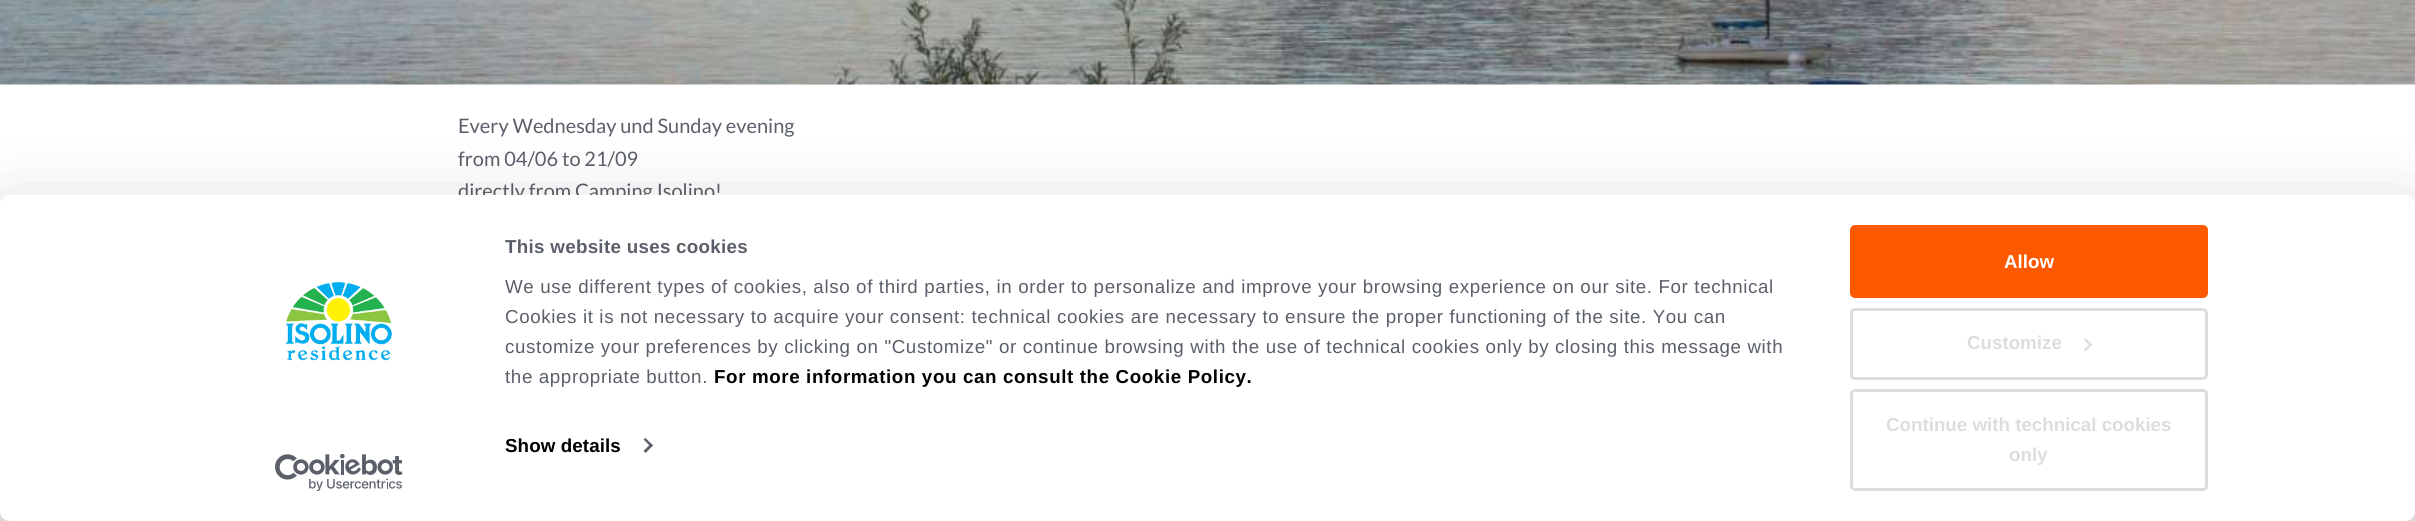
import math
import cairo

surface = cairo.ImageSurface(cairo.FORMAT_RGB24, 2415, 521)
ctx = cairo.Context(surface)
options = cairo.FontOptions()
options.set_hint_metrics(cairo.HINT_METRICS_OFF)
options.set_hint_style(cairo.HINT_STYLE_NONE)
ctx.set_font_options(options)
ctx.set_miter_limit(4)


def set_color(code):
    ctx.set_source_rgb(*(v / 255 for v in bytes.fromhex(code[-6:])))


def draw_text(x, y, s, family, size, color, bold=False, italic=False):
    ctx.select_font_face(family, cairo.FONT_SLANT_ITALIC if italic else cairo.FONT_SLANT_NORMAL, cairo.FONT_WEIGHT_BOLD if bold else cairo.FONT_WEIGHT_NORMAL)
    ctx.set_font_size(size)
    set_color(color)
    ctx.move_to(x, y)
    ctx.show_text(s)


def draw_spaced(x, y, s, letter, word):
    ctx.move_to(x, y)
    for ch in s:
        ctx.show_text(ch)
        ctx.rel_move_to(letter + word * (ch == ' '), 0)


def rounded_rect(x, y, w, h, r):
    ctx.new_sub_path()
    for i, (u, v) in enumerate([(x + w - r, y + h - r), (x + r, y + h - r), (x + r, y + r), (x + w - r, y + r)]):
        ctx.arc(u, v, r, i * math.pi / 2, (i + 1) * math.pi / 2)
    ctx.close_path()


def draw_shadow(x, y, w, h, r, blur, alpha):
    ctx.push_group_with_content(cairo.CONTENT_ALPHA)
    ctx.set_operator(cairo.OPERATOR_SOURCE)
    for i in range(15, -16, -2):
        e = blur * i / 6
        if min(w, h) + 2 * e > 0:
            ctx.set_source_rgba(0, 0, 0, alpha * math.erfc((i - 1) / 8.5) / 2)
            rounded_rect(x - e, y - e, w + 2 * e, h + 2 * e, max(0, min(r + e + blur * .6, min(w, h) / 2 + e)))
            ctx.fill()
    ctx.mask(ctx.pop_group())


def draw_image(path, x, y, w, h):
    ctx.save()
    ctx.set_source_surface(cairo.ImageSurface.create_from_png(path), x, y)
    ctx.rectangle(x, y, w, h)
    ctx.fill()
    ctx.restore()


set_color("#ffffff")
ctx.paint()
draw_image("assets/img1.png", 0, 0, 2415, 85)
draw_text(458, 133, "Every Wednesday und Sunday evening", "Lato", 20, "#5a5f69")
draw_text(458, 166, "from 04/06 to 21/09", "Lato", 20, "#5a5f69")
draw_text(458, 198, "directly from Camping Isolino!", "Lato", 20, "#5a5f69")
set_color("#000000")
draw_shadow(0, 233, 2415, 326, 10, 44, 0.3)
set_color("#ffffff")
rounded_rect(0, 195, 2415, 326, 10)
ctx.fill()
draw_image("assets/img2.png", 285, 282, 107, 79)
draw_image("assets/img3.png", 275, 454, 128, 37)
ctx.select_font_face("Liberation Sans", cairo.FONT_SLANT_NORMAL, cairo.FONT_WEIGHT_BOLD)
ctx.set_font_size(18.75)
set_color("#5a5f69")
draw_spaced(505, 253, "This website uses cookies", 0.3, 0)
ctx.select_font_face("Liberation Sans")
draw_spaced(505, 293, "We use different types of cookies, also of third parties, in order to personalize and improve your browsing experience on our site. For technical", 0.62, 0)
draw_spaced(505, 323, "Cookies it is not necessary to acquire your consent: technical cookies are necessary to ensure the proper functioning of the site. You can", 0.62, 0)
draw_spaced(505, 353, "customize your preferences by clicking on \"Customize\" or continue browsing with the use of technical cookies only by closing this message with", 0.62, 0)
draw_spaced(505, 383, "the appropriate button.", 0.62, 0)
ctx.select_font_face("Liberation Sans", cairo.FONT_SLANT_NORMAL, cairo.FONT_WEIGHT_BOLD)
set_color("#000000")
draw_spaced(714, 383, "For more information you can consult the Cookie Policy.", 0.62, 0)
draw_spaced(505, 452, "Show details", 0.1, 0)
set_color("#5a5f69")
ctx.new_path()
ctx.move_to(645.5, 438)
ctx.line_to(653, 445.5)
ctx.line_to(651, 447)
ctx.line_to(643.5, 439.5)
ctx.close_path()
ctx.fill()
ctx.new_path()
ctx.move_to(651, 443.5)
ctx.line_to(653, 445.5)
ctx.line_to(645.5, 453)
ctx.line_to(643.5, 451)
ctx.close_path()
ctx.fill()
set_color("#fd5900")
rounded_rect(1851.5, 226.5, 355, 70, 3.5)
ctx.fill_preserve()
ctx.set_line_width(3)
ctx.stroke()
draw_text(2004, 268, "Allow", "Liberation Sans", 18.75, "#ffffff", bold=True)
rounded_rect(1851.5, 309.5, 355, 69, 3.5)
set_color("#dddddd")
ctx.stroke()
draw_text(1967, 349, "Customize", "Liberation Sans", 18.75, "#dddddd", bold=True)
ctx.new_path()
ctx.move_to(2085.5, 338)
ctx.line_to(2092, 344.5)
ctx.line_to(2090.5, 346.5)
ctx.line_to(2084, 340)
ctx.close_path()
ctx.fill()
ctx.new_path()
ctx.move_to(2090.5, 343)
ctx.line_to(2092, 344.5)
ctx.line_to(2085.5, 351.5)
ctx.line_to(2084, 349.5)
ctx.close_path()
ctx.fill()
rounded_rect(1851.5, 390.5, 355, 99, 3.5)
ctx.stroke()
draw_text(1886, 431, "Continue with technical cookies", "Liberation Sans", 18.75, "#dddddd", bold=True)
draw_text(2009, 461, "only", "Liberation Sans", 18.75, "#dddddd", bold=True)
surface.write_to_png("output.png")
